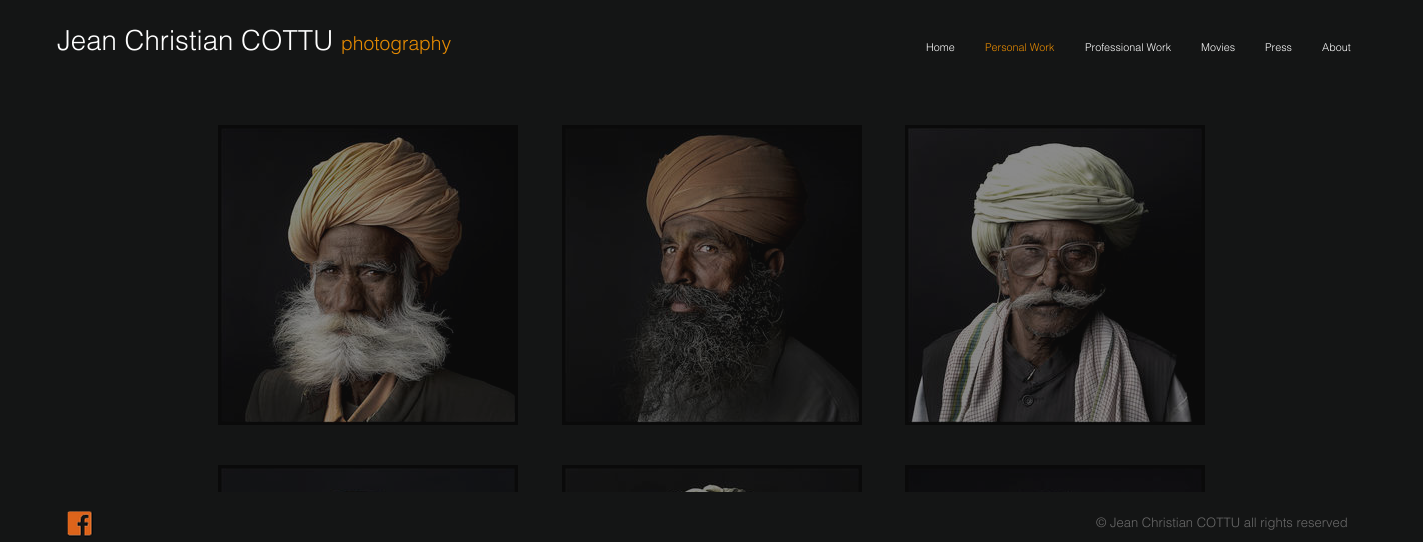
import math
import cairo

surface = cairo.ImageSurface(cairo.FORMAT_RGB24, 1423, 542)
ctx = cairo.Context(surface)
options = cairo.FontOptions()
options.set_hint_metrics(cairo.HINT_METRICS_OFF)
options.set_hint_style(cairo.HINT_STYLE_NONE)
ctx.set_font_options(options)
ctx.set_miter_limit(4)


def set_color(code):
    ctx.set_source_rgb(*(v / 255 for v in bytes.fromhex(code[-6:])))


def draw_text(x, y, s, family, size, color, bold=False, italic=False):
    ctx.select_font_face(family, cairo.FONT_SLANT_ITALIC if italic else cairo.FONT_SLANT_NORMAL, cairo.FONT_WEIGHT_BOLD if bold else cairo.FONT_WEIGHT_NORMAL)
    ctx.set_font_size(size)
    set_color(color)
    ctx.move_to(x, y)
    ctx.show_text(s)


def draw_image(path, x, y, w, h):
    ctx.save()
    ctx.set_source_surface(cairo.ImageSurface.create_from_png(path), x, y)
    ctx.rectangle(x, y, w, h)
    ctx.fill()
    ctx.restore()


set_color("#141515")
ctx.paint()
draw_text(57, 50, "Jean Christian COTTU", "Helvetica Light", 27.6, "#ffffff")
draw_text(341, 50, "photography", "Helvetica Light", 19.25, "#e88b00")
draw_text(926, 51, "Home", "Helvetica Light", 10.75, "#ffffff")
draw_text(985, 51, "Personal Work", "Helvetica Light", 10.75, "#e88b00")
draw_text(1085, 51, "Professional Work", "Helvetica Light", 10.75, "#ffffff")
draw_text(1201, 51, "Movies", "Helvetica Light", 10.75, "#ffffff")
draw_text(1265, 51, "Press", "Helvetica Light", 10.75, "#ffffff")
draw_text(1322, 51, "About", "Helvetica Light", 10.75, "#ffffff")
draw_image("assets/img1.png", 218, 125, 300, 300)
draw_image("assets/img2.png", 562, 125, 300, 300)
draw_image("assets/img3.png", 905, 125, 300, 300)
draw_image("assets/img4.png", 218, 465, 300, 27)
draw_image("assets/img5.png", 562, 465, 300, 27)
draw_image("assets/img6.png", 905, 465, 300, 27)
draw_image("assets/img7.png", 67, 511, 26, 26)
draw_text(1096, 527, "© Jean Christian COTTU all rights reserved", "Helvetica Light", 13, "#696969")
surface.write_to_png("output.png")
